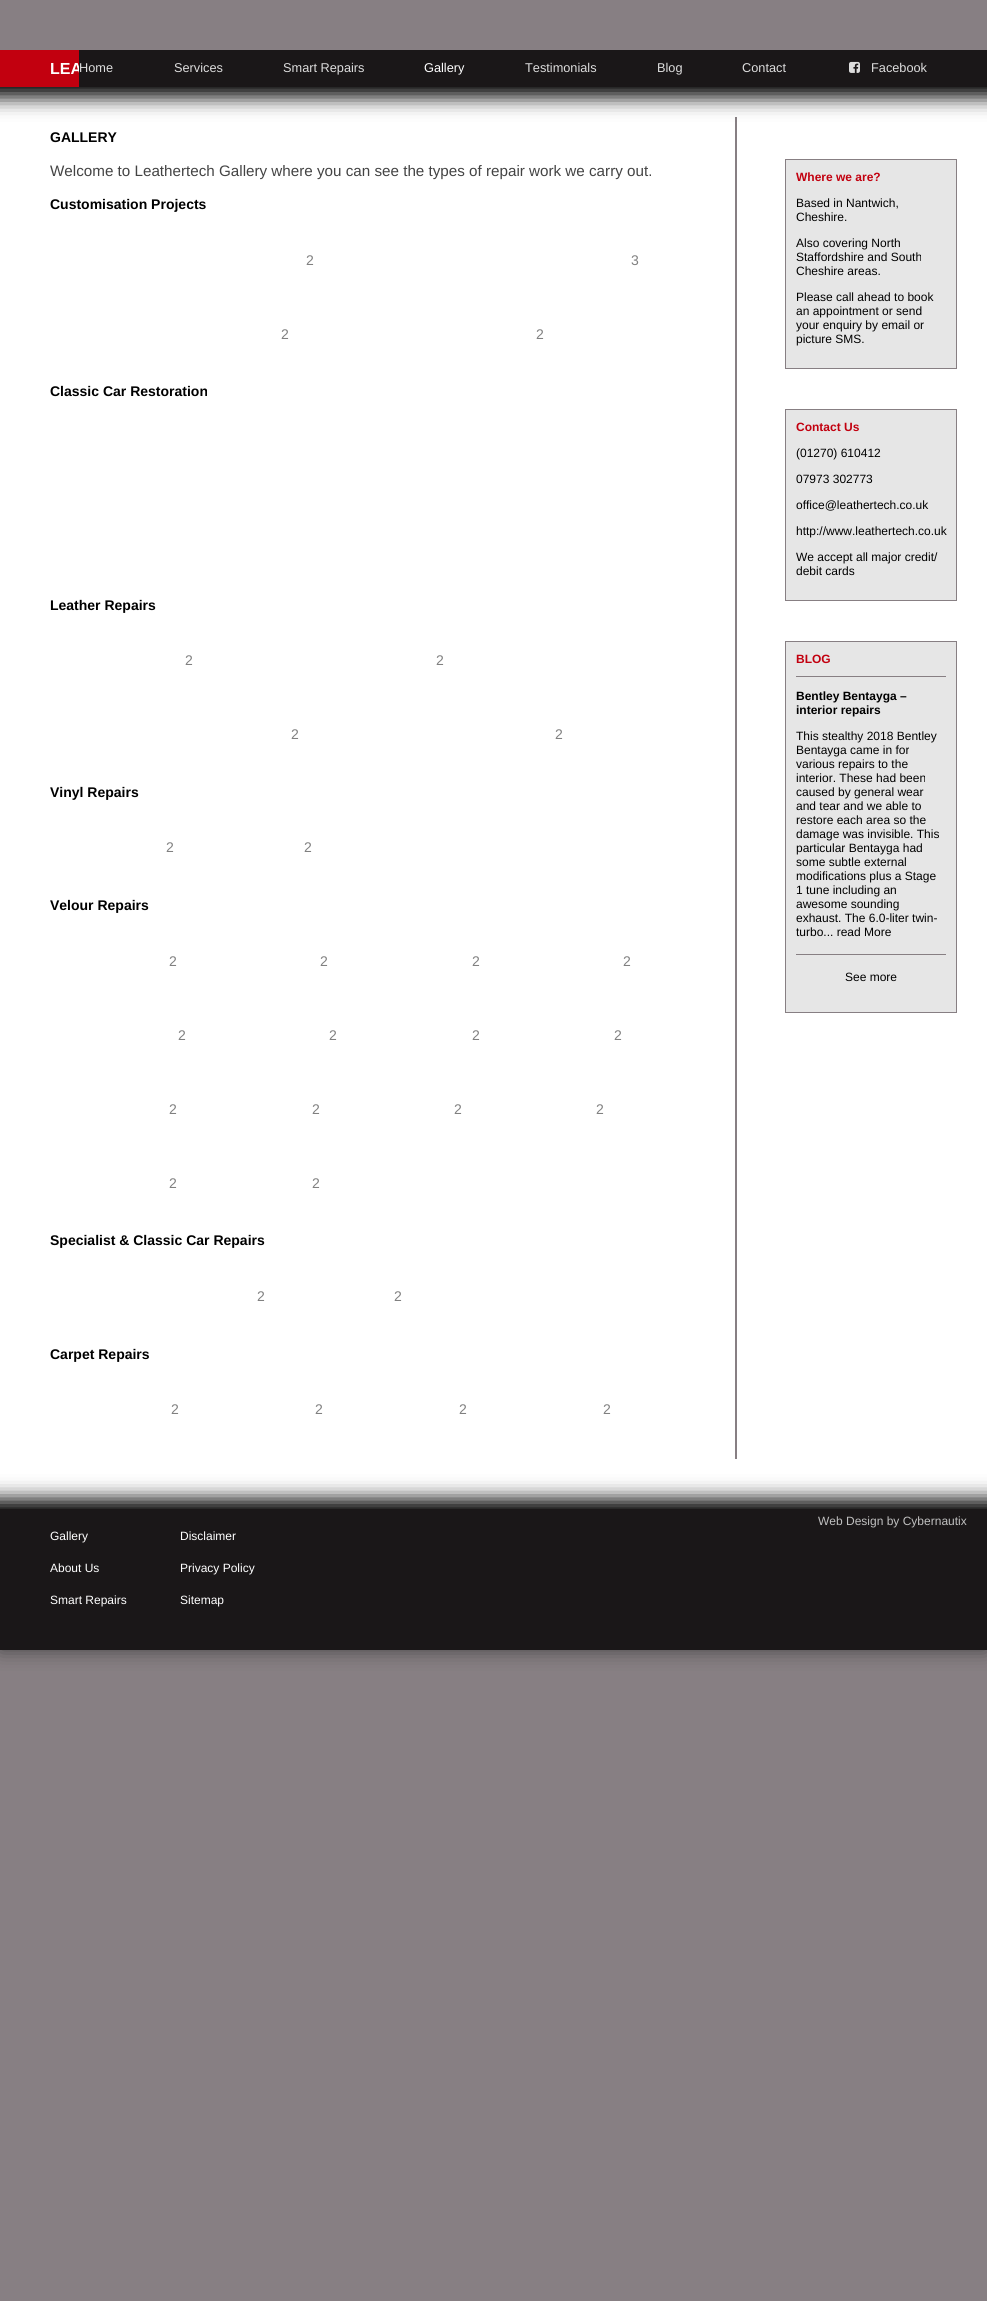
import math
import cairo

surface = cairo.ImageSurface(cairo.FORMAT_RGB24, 987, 2301)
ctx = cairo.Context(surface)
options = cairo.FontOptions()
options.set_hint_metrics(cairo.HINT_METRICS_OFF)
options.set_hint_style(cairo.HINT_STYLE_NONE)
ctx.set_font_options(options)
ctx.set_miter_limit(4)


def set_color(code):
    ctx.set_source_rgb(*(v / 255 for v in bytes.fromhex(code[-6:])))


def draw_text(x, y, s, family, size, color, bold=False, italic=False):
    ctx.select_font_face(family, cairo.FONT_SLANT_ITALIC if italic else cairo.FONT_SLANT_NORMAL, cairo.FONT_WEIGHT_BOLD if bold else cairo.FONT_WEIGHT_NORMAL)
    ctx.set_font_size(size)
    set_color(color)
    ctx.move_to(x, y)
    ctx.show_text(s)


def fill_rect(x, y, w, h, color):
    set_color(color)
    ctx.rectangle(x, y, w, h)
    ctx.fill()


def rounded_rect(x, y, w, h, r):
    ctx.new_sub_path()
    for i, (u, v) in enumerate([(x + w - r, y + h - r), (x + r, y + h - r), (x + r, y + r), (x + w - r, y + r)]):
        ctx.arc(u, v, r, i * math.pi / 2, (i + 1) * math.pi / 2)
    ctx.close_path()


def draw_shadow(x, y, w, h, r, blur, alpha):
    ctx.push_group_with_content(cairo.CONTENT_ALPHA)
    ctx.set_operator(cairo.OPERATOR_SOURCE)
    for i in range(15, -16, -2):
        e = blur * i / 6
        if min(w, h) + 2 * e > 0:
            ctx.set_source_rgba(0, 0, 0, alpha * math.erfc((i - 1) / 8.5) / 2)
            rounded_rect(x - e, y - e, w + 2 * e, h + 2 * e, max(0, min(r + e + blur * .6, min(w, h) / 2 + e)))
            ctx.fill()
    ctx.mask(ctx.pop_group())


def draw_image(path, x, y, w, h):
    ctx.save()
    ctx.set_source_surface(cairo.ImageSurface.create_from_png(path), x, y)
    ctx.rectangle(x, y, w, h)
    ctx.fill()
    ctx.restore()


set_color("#877f83")
ctx.paint()
ctx.save()
ctx.rectangle(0, 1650, 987, 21)
ctx.clip()
set_color("#444444")
draw_shadow(0, 0, 987, 1650, 0, 10, 1)
ctx.restore()
fill_rect(0, 50, 79, 37, "#c2000f")
draw_text(50, 74, "LEA", "Liberation Sans", 16, "#ffffff", bold=True)
fill_rect(0, 87, 987, 1422, "#ffffff")
fill_rect(735, 117, 2, 1342, "#877f83")
ctx.save()
ctx.rectangle(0, 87, 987, 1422)
ctx.clip()
set_color("#000000")
draw_shadow(-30, 47, 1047, 50, 0, 10, 1)
ctx.restore()
fill_rect(79, 50, 908, 37, "#1a1718")
draw_text(79, 72, "Home", "Liberation Sans", 12.75, "#dddddd")
draw_text(174, 72, "Services", "Liberation Sans", 12.75, "#dddddd")
draw_text(283, 72, "Smart Repairs", "Liberation Sans", 12.75, "#dddddd")
draw_text(424, 72, "Gallery", "Liberation Sans", 12.75, "#ffffff")
draw_text(525, 72, "Testimonials", "Liberation Sans", 12.75, "#dddddd")
draw_text(657, 72, "Blog", "Liberation Sans", 12.75, "#dddddd")
draw_text(742, 72, "Contact", "Liberation Sans", 12.75, "#dddddd")
draw_image("assets/img1.png", 849, 61, 11, 12)
draw_text(871, 72, "Facebook", "Liberation Sans", 12.75, "#dddddd")
draw_text(50, 142, "GALLERY", "Liberation Sans", 14, "#000000", bold=True)
draw_text(50, 176, "Welcome to Leathertech Gallery where you can see the types of repair work we carry out.", "Liberation Sans", 15.2, "#444444")
draw_text(50, 209, "Customisation Projects", "Liberation Sans", 14, "#000000", bold=True)
draw_text(306, 265, "2", "Liberation Sans", 14, "#808080")
draw_text(631, 265, "3", "Liberation Sans", 14, "#808080")
draw_text(281, 339, "2", "Liberation Sans", 14, "#808080")
draw_text(536, 339, "2", "Liberation Sans", 14, "#808080")
draw_text(50, 396, "Classic Car Restoration", "Liberation Sans", 14, "#000000", bold=True)
draw_text(50, 610, "Leather Repairs", "Liberation Sans", 14, "#000000", bold=True)
draw_text(185, 665, "2", "Liberation Sans", 14, "#808080")
draw_text(436, 665, "2", "Liberation Sans", 14, "#808080")
draw_text(291, 739, "2", "Liberation Sans", 14, "#808080")
draw_text(555, 739, "2", "Liberation Sans", 14, "#808080")
draw_text(50, 797, "Vinyl Repairs", "Liberation Sans", 14, "#000000", bold=True)
draw_text(166, 852, "2", "Liberation Sans", 14, "#808080")
draw_text(304, 852, "2", "Liberation Sans", 14, "#808080")
draw_text(50, 910, "Velour Repairs", "Liberation Sans", 14, "#000000", bold=True)
draw_text(169, 966, "2", "Liberation Sans", 14, "#808080")
draw_text(320, 966, "2", "Liberation Sans", 14, "#808080")
draw_text(472, 966, "2", "Liberation Sans", 14, "#808080")
draw_text(623, 966, "2", "Liberation Sans", 14, "#808080")
draw_text(178, 1040, "2", "Liberation Sans", 14, "#808080")
draw_text(329, 1040, "2", "Liberation Sans", 14, "#808080")
draw_text(472, 1040, "2", "Liberation Sans", 14, "#808080")
draw_text(614, 1040, "2", "Liberation Sans", 14, "#808080")
draw_text(169, 1114, "2", "Liberation Sans", 14, "#808080")
draw_text(312, 1114, "2", "Liberation Sans", 14, "#808080")
draw_text(454, 1114, "2", "Liberation Sans", 14, "#808080")
draw_text(596, 1114, "2", "Liberation Sans", 14, "#808080")
draw_text(169, 1188, "2", "Liberation Sans", 14, "#808080")
draw_text(312, 1188, "2", "Liberation Sans", 14, "#808080")
draw_text(50, 1245, "Specialist & Classic Car Repairs", "Liberation Sans", 14, "#000000", bold=True)
draw_text(257, 1301, "2", "Liberation Sans", 14, "#808080")
draw_text(394, 1301, "2", "Liberation Sans", 14, "#808080")
draw_text(50, 1359, "Carpet Repairs", "Liberation Sans", 14, "#000000", bold=True)
draw_text(171, 1414, "2", "Liberation Sans", 14, "#808080")
draw_text(315, 1414, "2", "Liberation Sans", 14, "#808080")
draw_text(459, 1414, "2", "Liberation Sans", 14, "#808080")
draw_text(603, 1414, "2", "Liberation Sans", 14, "#808080")
set_color("#e6e6e6")
ctx.rectangle(785.5, 159.5, 171, 209)
ctx.fill_preserve()
set_color("#877f83")
ctx.set_line_width(1)
ctx.stroke()
draw_text(796, 181, "Where we are?", "Liberation Sans", 12, "#c2000f", bold=True)
draw_text(796, 207, "Based in Nantwich,", "Liberation Sans", 12, "#000000")
draw_text(796, 221, "Cheshire.", "Liberation Sans", 12, "#000000")
draw_text(796, 247, "Also covering North", "Liberation Sans", 12, "#000000")
draw_text(796, 261, "Staffordshire and South", "Liberation Sans", 12, "#000000")
draw_text(796, 275, "Cheshire areas.", "Liberation Sans", 12, "#000000")
draw_text(796, 301, "Please call ahead to book", "Liberation Sans", 12, "#000000")
draw_text(796, 315, "an appointment or send", "Liberation Sans", 12, "#000000")
draw_text(796, 329, "your enquiry by email or", "Liberation Sans", 12, "#000000")
draw_text(796, 343, "picture SMS.", "Liberation Sans", 12, "#000000")
set_color("#e6e6e6")
ctx.rectangle(785.5, 409.5, 171, 191)
ctx.fill_preserve()
set_color("#877f83")
ctx.stroke()
draw_text(796, 431, "Contact Us", "Liberation Sans", 12, "#c2000f", bold=True)
draw_text(796, 457, "(01270) 610412", "Liberation Sans", 12, "#000000")
draw_text(796, 483, "07973 302773", "Liberation Sans", 12, "#000000")
draw_text(796, 509, "office@leathertech.co.uk", "Liberation Sans", 12, "#000000")
draw_text(796, 535, "http://www.leathertech.co.uk", "Liberation Sans", 12, "#000000")
draw_text(796, 561, "We accept all major credit/", "Liberation Sans", 12, "#000000")
draw_text(796, 575, "debit cards", "Liberation Sans", 12, "#000000")
set_color("#e6e6e6")
ctx.rectangle(785.5, 641.5, 171, 371)
ctx.fill_preserve()
set_color("#877f83")
ctx.stroke()
draw_text(796, 663, "BLOG", "Liberation Sans", 12, "#c2000f", bold=True)
fill_rect(796, 676, 150, 1, "#877f83")
draw_text(796, 700, "Bentley Bentayga –", "Liberation Sans", 12, "#000000", bold=True)
draw_text(796, 714, "interior repairs", "Liberation Sans", 12, "#000000", bold=True)
draw_text(796, 740, "This stealthy 2018 Bentley", "Liberation Sans", 12, "#000000")
draw_text(796, 754, "Bentayga came in for", "Liberation Sans", 12, "#000000")
draw_text(796, 768, "various repairs to the", "Liberation Sans", 12, "#000000")
draw_text(796, 782, "interior. These had been", "Liberation Sans", 12, "#000000")
draw_text(796, 796, "caused by general wear", "Liberation Sans", 12, "#000000")
draw_text(796, 810, "and tear and we able to", "Liberation Sans", 12, "#000000")
draw_text(796, 824, "restore each area so the", "Liberation Sans", 12, "#000000")
draw_text(796, 838, "damage was invisible. This", "Liberation Sans", 12, "#000000")
draw_text(796, 852, "particular Bentayga had", "Liberation Sans", 12, "#000000")
draw_text(796, 866, "some subtle external", "Liberation Sans", 12, "#000000")
draw_text(796, 880, "modifications plus a Stage", "Liberation Sans", 12, "#000000")
draw_text(796, 894, "1 tune including an", "Liberation Sans", 12, "#000000")
draw_text(796, 908, "awesome sounding", "Liberation Sans", 12, "#000000")
draw_text(796, 922, "exhaust. The 6.0-liter twin-", "Liberation Sans", 12, "#000000")
draw_text(796, 936, "turbo... read More", "Liberation Sans", 12, "#000000")
fill_rect(796, 954, 150, 1, "#877f83")
draw_text(845, 981, "See more", "Liberation Sans", 12, "#000000")
fill_rect(0, 1509, 987, 141, "#1a1718")
ctx.save()
ctx.rectangle(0, 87, 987, 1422)
ctx.clip()
set_color("#000000")
draw_shadow(-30, 1499, 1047, 50, 0, 10, 1)
ctx.restore()
draw_text(818, 1525, "Web Design by Cybernautix", "Liberation Sans", 12, "#c0c0c0")
draw_text(50, 1540, "Gallery", "Liberation Sans", 12, "#ffffff")
draw_text(50, 1572, "About Us", "Liberation Sans", 12, "#ffffff")
draw_text(50, 1604, "Smart Repairs", "Liberation Sans", 12, "#ffffff")
draw_text(180, 1540, "Disclaimer", "Liberation Sans", 12, "#ffffff")
draw_text(180, 1572, "Privacy Policy", "Liberation Sans", 12, "#ffffff")
draw_text(180, 1604, "Sitemap", "Liberation Sans", 12, "#ffffff")
surface.write_to_png("output.png")
